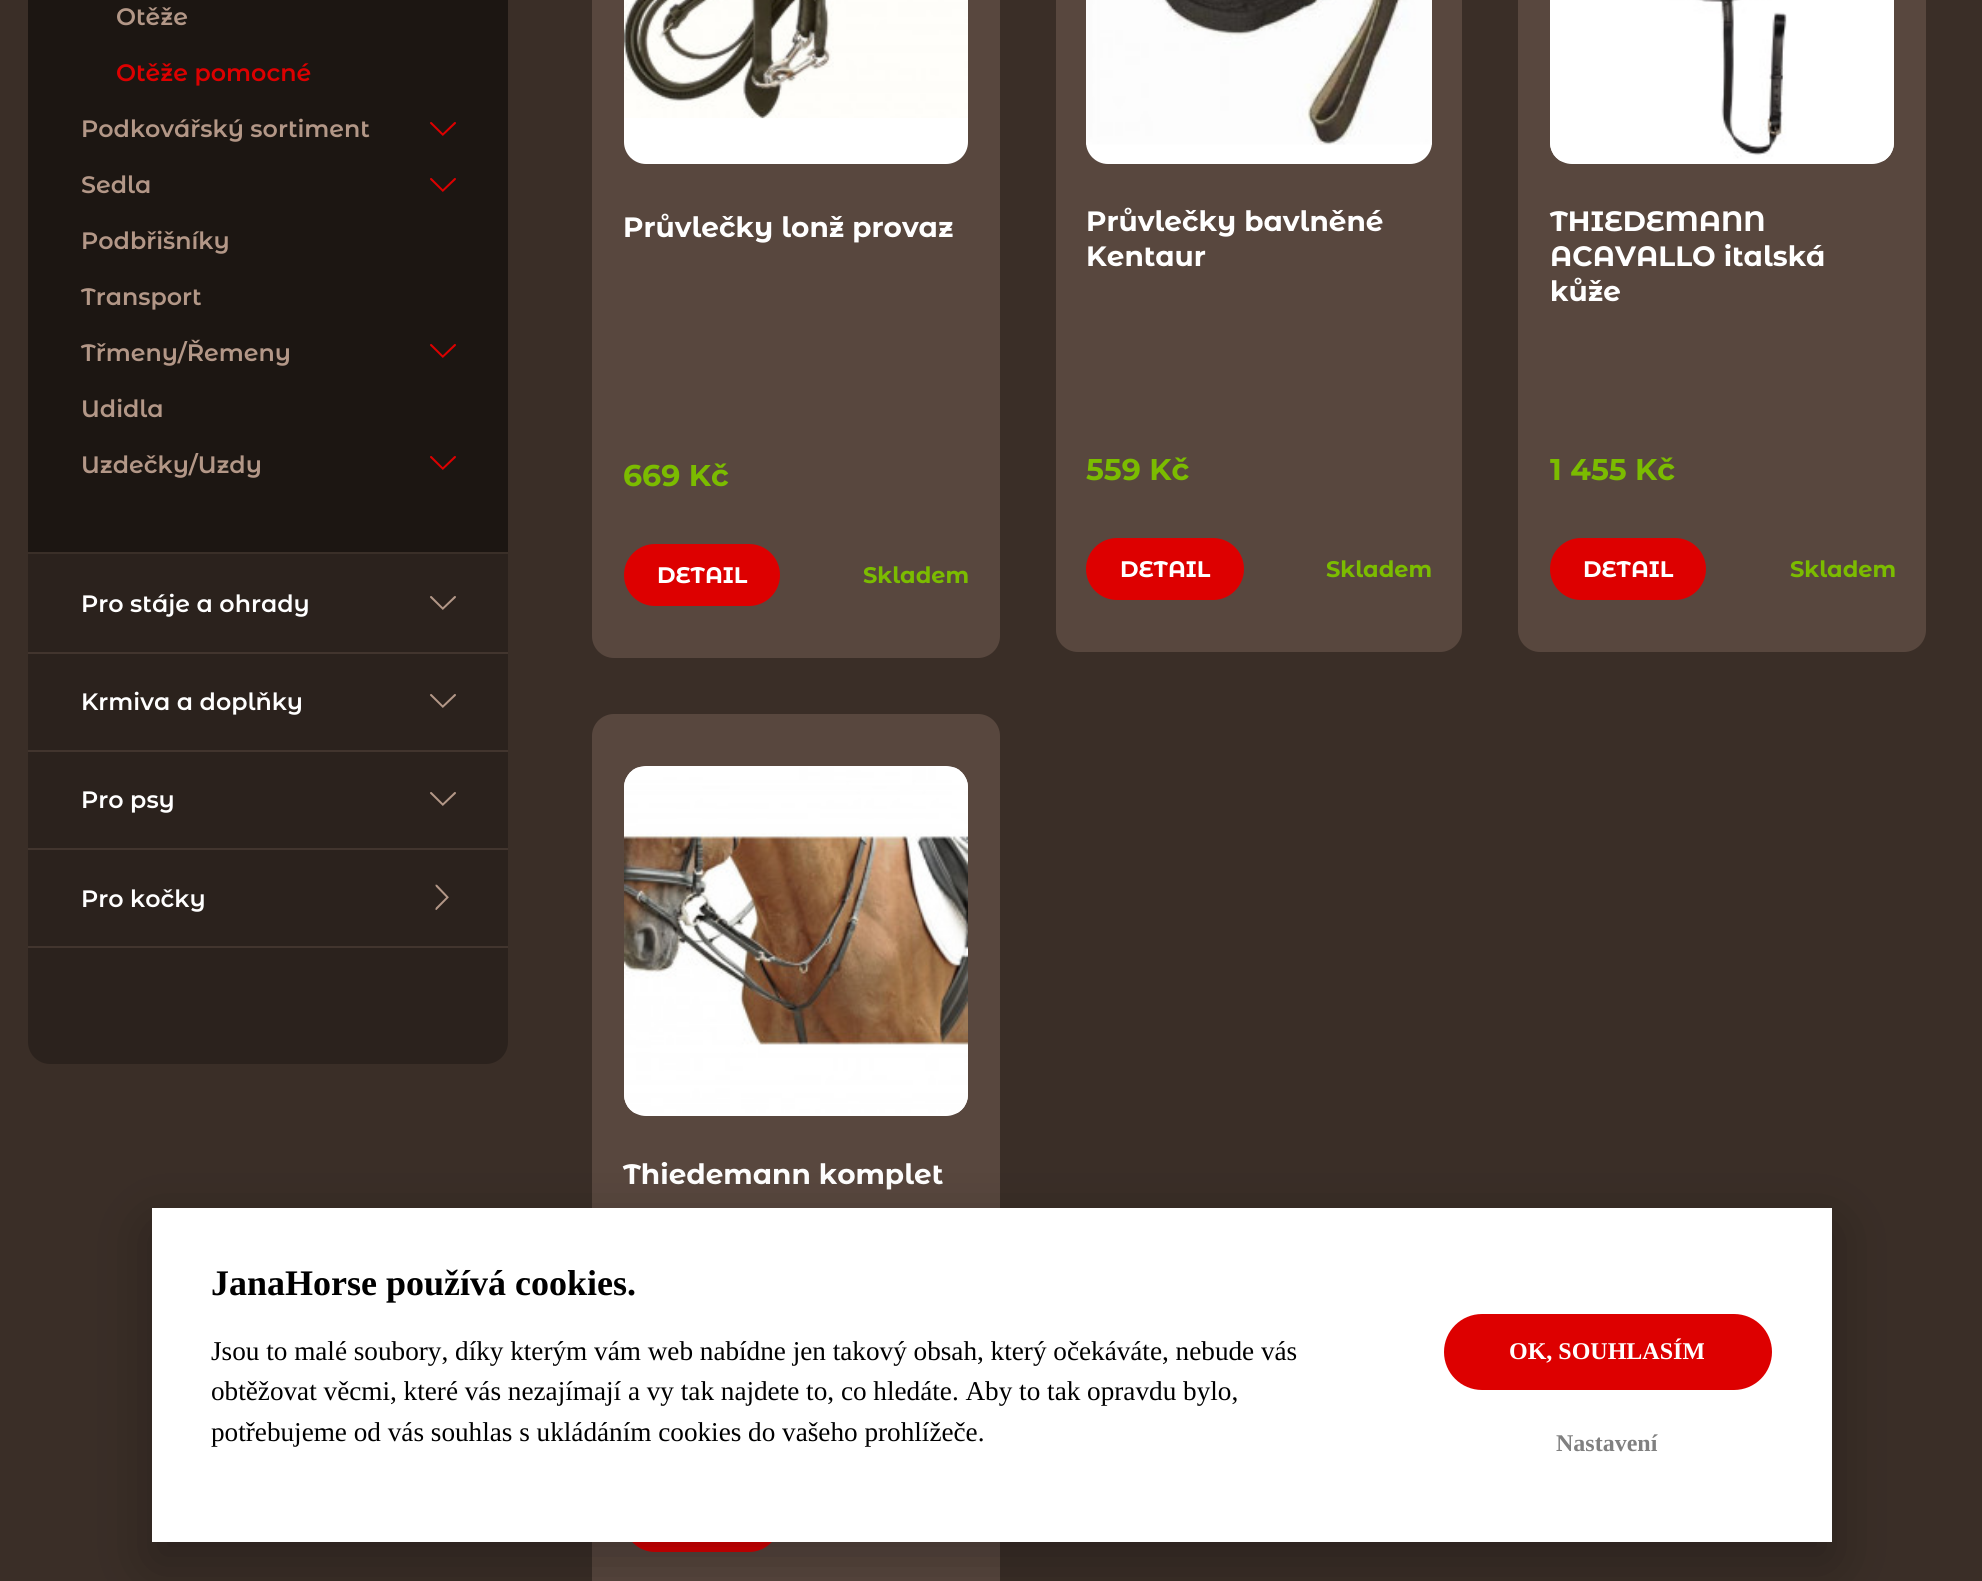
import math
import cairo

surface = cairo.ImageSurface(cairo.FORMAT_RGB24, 1982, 1581)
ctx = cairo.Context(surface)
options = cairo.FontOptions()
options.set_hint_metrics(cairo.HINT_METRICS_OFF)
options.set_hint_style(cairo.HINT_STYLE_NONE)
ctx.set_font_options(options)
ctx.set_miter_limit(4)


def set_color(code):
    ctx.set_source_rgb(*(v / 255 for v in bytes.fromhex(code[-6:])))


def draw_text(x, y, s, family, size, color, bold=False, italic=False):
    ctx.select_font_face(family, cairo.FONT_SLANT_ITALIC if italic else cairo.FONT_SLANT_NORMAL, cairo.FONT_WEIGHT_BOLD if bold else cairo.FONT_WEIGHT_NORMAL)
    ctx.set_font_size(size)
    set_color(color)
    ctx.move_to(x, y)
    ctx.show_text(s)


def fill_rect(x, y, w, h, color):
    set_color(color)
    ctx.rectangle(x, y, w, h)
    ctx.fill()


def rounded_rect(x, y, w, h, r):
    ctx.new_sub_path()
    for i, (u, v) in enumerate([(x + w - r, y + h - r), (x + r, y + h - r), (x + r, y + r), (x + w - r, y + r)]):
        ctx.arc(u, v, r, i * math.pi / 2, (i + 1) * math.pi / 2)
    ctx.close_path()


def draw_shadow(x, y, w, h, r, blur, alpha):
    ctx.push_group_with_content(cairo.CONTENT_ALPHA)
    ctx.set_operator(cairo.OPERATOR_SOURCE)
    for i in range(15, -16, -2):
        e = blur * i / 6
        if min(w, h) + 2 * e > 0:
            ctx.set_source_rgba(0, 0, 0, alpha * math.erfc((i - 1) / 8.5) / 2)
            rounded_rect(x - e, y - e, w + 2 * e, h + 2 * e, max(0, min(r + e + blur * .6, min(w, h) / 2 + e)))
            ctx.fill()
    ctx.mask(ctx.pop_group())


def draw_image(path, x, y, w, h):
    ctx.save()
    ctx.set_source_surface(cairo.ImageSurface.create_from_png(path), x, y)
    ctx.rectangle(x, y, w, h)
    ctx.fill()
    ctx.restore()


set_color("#3a2e27")
ctx.paint()
set_color("#2b221d")
rounded_rect(28, -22, 480, 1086, 22)
ctx.fill()
fill_rect(28, 0, 480, 552, "#1c1612")
fill_rect(28, 552, 480, 2, "#3a2f28")
draw_text(116, 25, "Otěže", "Montserrat Alternates SemiBold", 23.75, "#b39787")
draw_text(116, 81, "Otěže pomocné", "Montserrat Alternates SemiBold", 23.75, "#dd0000")
draw_text(81, 137, "Podkovářský sortiment", "Montserrat Alternates SemiBold", 23.75, "#b39787")
draw_image("assets/img1.png", 430, 122, 26, 14)
draw_text(81, 193, "Sedla", "Montserrat Alternates SemiBold", 23.75, "#b39787")
draw_image("assets/img1.png", 430, 178, 26, 14)
draw_text(81, 249, "Podbřišníky", "Montserrat Alternates SemiBold", 23.75, "#b39787")
draw_text(81, 305, "Transport", "Montserrat Alternates SemiBold", 23.75, "#b39787")
draw_text(81, 361, "Třmeny/Řemeny", "Montserrat Alternates SemiBold", 23.75, "#b39787")
draw_image("assets/img1.png", 430, 344, 26, 14)
draw_text(81, 417, "Udidla", "Montserrat Alternates SemiBold", 23.75, "#b39787")
draw_text(81, 473, "Uzdečky/Uzdy", "Montserrat Alternates SemiBold", 23.75, "#b39787")
draw_image("assets/img1.png", 430, 456, 26, 14)
fill_rect(28, 652, 480, 2, "#42352e")
draw_text(81, 612, "Pro stáje a ohrady", "Montserrat Alternates SemiBold", 23.75, "#ffffff")
draw_image("assets/img2.png", 430, 596, 26, 14)
fill_rect(28, 750, 480, 2, "#42352e")
draw_text(81, 710, "Krmiva a doplňky", "Montserrat Alternates SemiBold", 23.75, "#ffffff")
draw_image("assets/img2.png", 430, 694, 26, 14)
fill_rect(28, 848, 480, 2, "#42352e")
draw_text(81, 808, "Pro psy", "Montserrat Alternates SemiBold", 23.75, "#ffffff")
draw_image("assets/img2.png", 430, 792, 26, 14)
fill_rect(28, 946, 480, 2, "#42352e")
draw_text(81, 907, "Pro kočky", "Montserrat Alternates SemiBold", 23.75, "#ffffff")
draw_image("assets/img3.png", 435, 884, 14, 26)
set_color("#58473e")
rounded_rect(592, -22, 408, 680, 22)
ctx.fill()
set_color("#ffffff")
rounded_rect(624, -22, 344, 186, 22)
ctx.fill()
draw_image("assets/img4.png", 624, 0, 344, 119)
draw_text(623, 237, "Průvlečky lonž provaz", "Montserrat Alternates", 28, "#ffffff", bold=True)
draw_text(623, 486, "669 Kč", "Montserrat Alternates", 30, "#7bbc00", bold=True)
set_color("#dd0000")
rounded_rect(624, 544, 156, 62, 31)
ctx.fill()
draw_text(657, 583, "DETAIL", "Montserrat Alternates", 22.5, "#ffffff", bold=True)
draw_text(863, 583, "Skladem", "Montserrat Alternates", 22.5, "#7bbc00", bold=True)
set_color("#58473e")
rounded_rect(1056, -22, 406, 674, 22)
ctx.fill()
set_color("#ffffff")
rounded_rect(1086, -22, 346, 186, 22)
ctx.fill()
draw_image("assets/img5.png", 1086, 0, 346, 145)
draw_text(1086, 231, "Průvlečky bavlněné", "Montserrat Alternates", 28, "#ffffff", bold=True)
draw_text(1086, 266, "Kentaur", "Montserrat Alternates", 28, "#ffffff", bold=True)
draw_text(1086, 480, "559 Kč", "Montserrat Alternates", 30, "#7bbc00", bold=True)
set_color("#dd0000")
rounded_rect(1086, 538, 158, 62, 31)
ctx.fill()
draw_text(1120, 577, "DETAIL", "Montserrat Alternates", 22.5, "#ffffff", bold=True)
draw_text(1326, 577, "Skladem", "Montserrat Alternates", 22.5, "#7bbc00", bold=True)
set_color("#58473e")
rounded_rect(1518, -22, 408, 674, 22)
ctx.fill()
set_color("#ffffff")
rounded_rect(1550, -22, 344, 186, 22)
ctx.fill()
draw_image("assets/img6.png", 1550, 0, 344, 162)
draw_text(1550, 231, "THIEDEMANN", "Montserrat Alternates", 28, "#ffffff", bold=True)
draw_text(1550, 266, "ACAVALLO italská", "Montserrat Alternates", 28, "#ffffff", bold=True)
draw_text(1550, 301, "kůže", "Montserrat Alternates", 28, "#ffffff", bold=True)
draw_text(1550, 480, "1 455 Kč", "Montserrat Alternates", 30, "#7bbc00", bold=True)
set_color("#dd0000")
rounded_rect(1550, 538, 156, 62, 31)
ctx.fill()
draw_text(1583, 577, "DETAIL", "Montserrat Alternates", 22.5, "#ffffff", bold=True)
draw_text(1790, 577, "Skladem", "Montserrat Alternates", 22.5, "#7bbc00", bold=True)
set_color("#58473e")
rounded_rect(592, 714, 408, 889, 22)
ctx.fill()
set_color("#ffffff")
rounded_rect(624, 766, 344, 350, 22)
ctx.fill()
draw_image("assets/img7.png", 624, 767, 344, 347)
draw_text(623, 1184, "Thiedemann komplet", "Montserrat Alternates", 28, "#ffffff", bold=True)
set_color("#dd0000")
rounded_rect(624, 1490, 156, 62, 31)
ctx.fill()
set_color("#020203")
draw_shadow(152, 1228, 1680, 334, 0, 30, 0.28)
fill_rect(152, 1208, 1680, 334, "#ffffff")
draw_text(211, 1295, "JanaHorse používá cookies.", "Liberation Serif", 36, "#000000", bold=True)
draw_text(211, 1360, "Jsou to malé soubory, díky kterým vám web nabídne jen takový obsah, který očekáváte, nebude vás", "Liberation Serif", 27.2, "#000000")
draw_text(211, 1400, "obtěžovat věcmi, které vás nezajímají a vy tak najdete to, co hledáte. Aby to tak opravdu bylo,", "Liberation Serif", 27.2, "#000000")
draw_text(211, 1441, "potřebujeme od vás souhlas s ukládáním cookies do vašeho prohlížeče.", "Liberation Serif", 27.2, "#000000")
set_color("#dd0000")
rounded_rect(1444, 1314, 328, 76, 38)
ctx.fill()
draw_text(1509, 1359, "OK, SOUHLASÍM", "Liberation Serif", 24, "#ffffff", bold=True)
draw_text(1556, 1451, "Nastavení", "Liberation Serif", 24, "#808080", bold=True)
surface.write_to_png("output.png")
